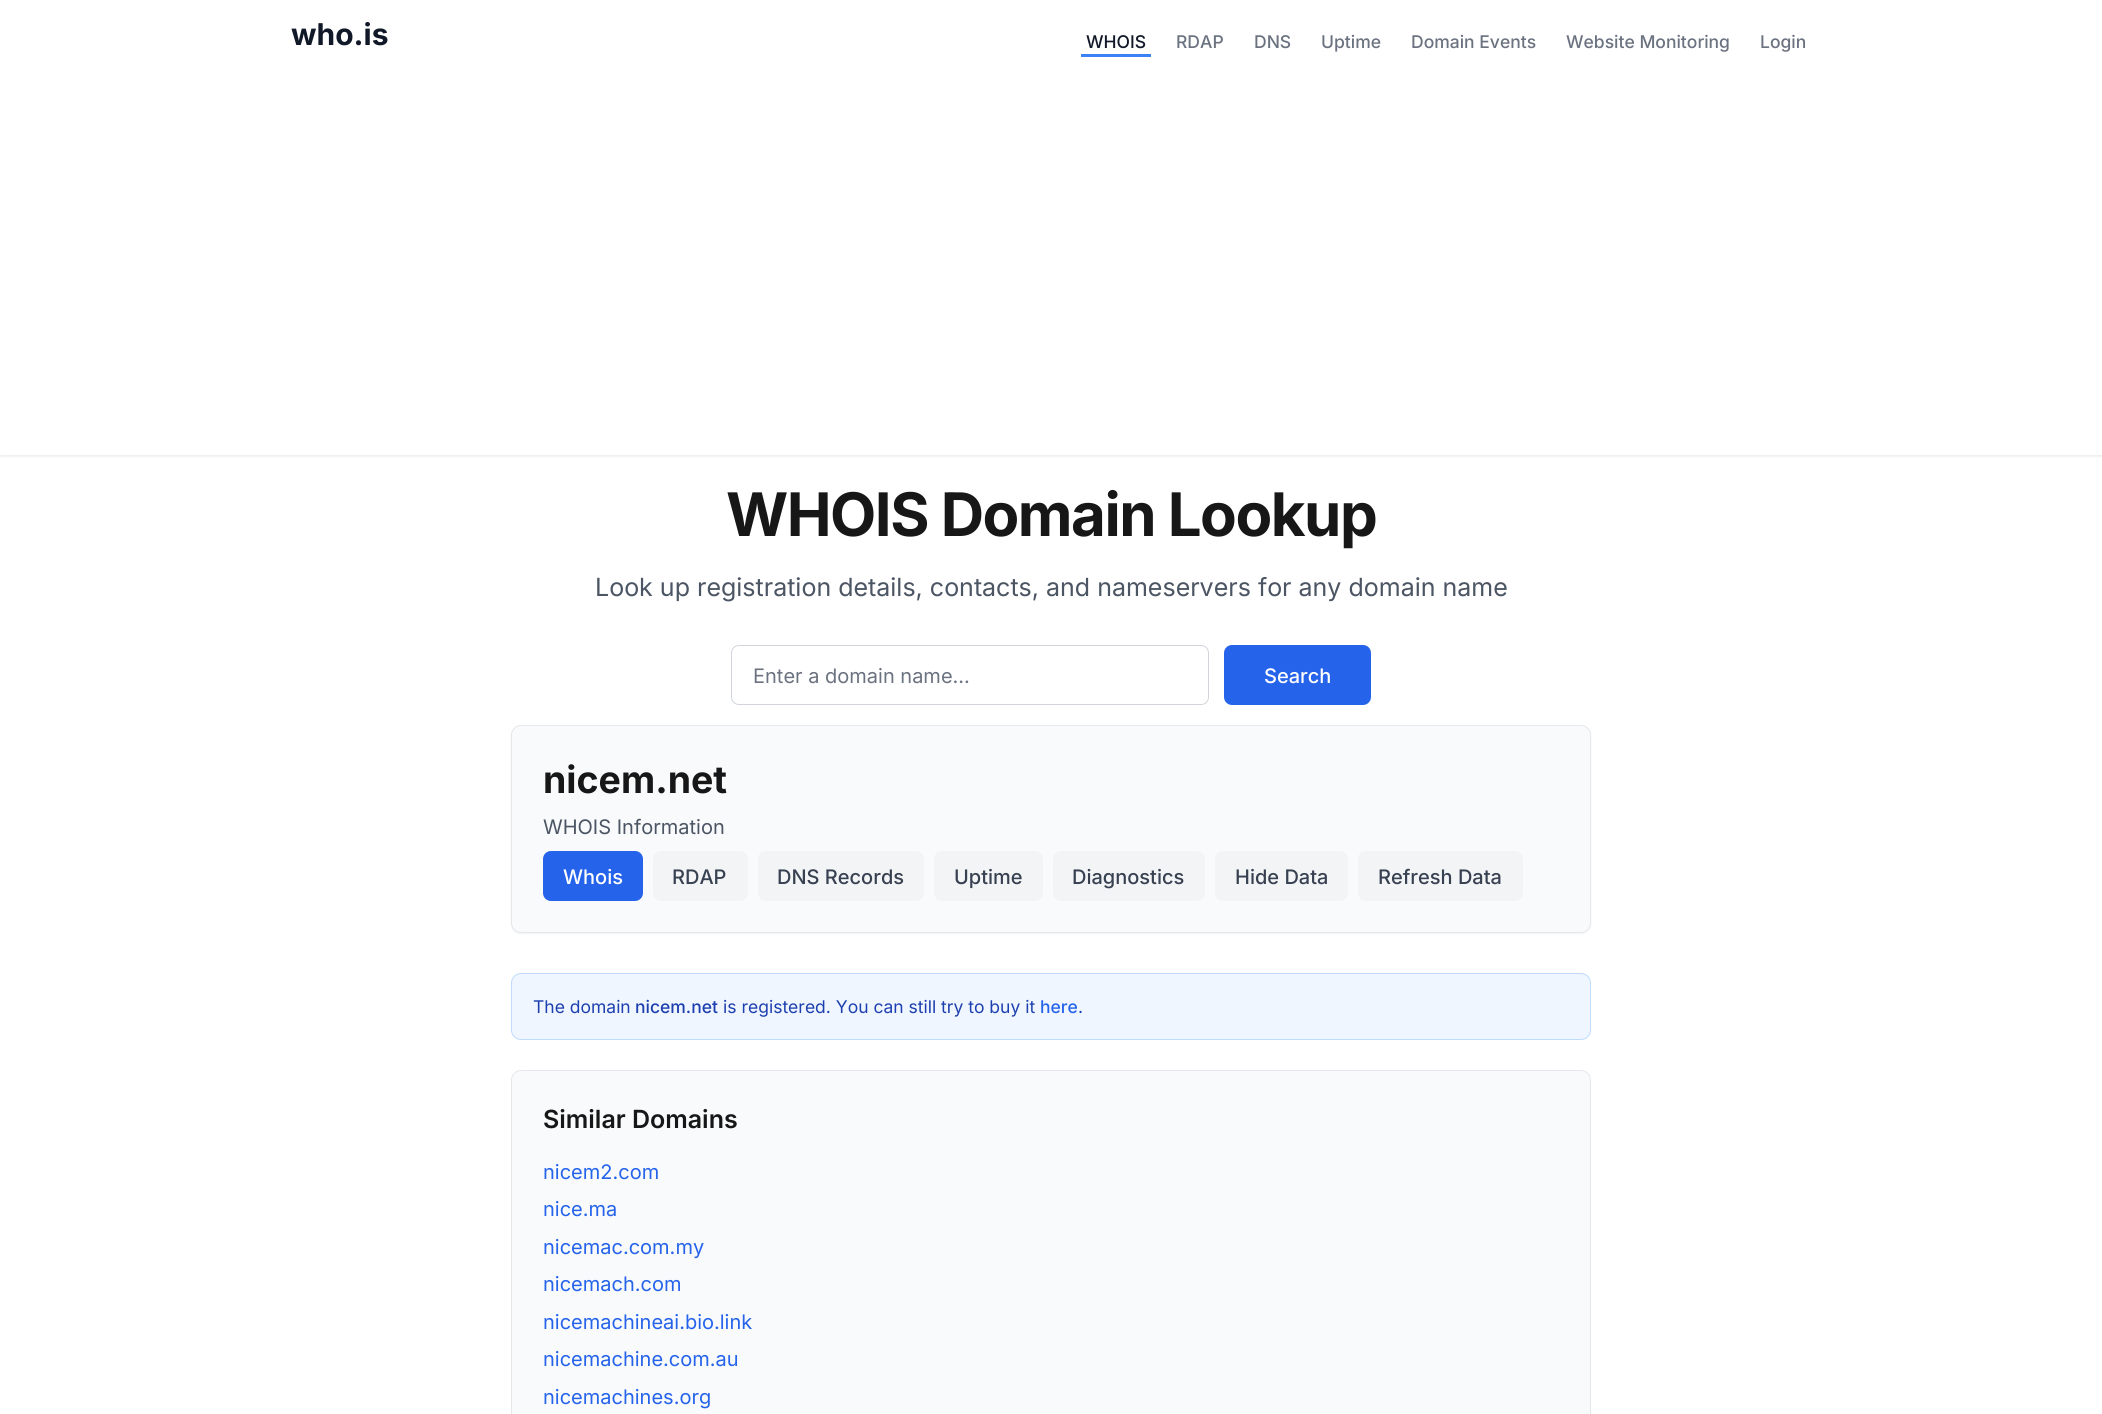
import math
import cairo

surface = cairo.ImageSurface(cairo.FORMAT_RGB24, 2102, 1414)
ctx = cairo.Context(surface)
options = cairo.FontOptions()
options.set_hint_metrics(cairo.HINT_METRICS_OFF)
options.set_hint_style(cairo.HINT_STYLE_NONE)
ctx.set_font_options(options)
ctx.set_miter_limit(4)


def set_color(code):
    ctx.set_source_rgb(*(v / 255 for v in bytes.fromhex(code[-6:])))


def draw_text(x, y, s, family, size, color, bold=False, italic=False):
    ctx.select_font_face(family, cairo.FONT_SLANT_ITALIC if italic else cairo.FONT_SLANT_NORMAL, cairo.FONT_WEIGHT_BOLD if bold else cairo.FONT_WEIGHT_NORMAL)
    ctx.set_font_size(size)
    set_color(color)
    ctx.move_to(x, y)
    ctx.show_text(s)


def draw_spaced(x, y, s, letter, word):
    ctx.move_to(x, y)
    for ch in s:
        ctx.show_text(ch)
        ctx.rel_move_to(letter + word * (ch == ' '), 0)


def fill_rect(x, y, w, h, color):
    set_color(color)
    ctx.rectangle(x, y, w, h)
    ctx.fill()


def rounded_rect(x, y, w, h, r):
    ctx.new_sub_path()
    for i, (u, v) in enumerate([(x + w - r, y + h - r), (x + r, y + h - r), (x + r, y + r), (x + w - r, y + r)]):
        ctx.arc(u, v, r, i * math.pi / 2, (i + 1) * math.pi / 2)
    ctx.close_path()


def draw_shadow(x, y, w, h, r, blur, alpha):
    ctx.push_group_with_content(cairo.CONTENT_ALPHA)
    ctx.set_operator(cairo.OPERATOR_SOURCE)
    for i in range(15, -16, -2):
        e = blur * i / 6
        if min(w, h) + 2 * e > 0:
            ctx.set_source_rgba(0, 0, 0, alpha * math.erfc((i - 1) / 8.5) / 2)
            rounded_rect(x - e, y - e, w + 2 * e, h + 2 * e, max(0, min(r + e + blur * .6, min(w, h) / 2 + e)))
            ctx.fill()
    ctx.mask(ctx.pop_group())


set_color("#ffffff")
ctx.paint()
ctx.save()
ctx.rectangle(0, 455, 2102, 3)
ctx.clip()
set_color("#000000")
draw_shadow(0, 1, 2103, 455, 0, 2, 0.1)
ctx.restore()
draw_text(291, 45, "who.is", "Inter", 30, "#111827", bold=True)
fill_rect(1081, 54, 70, 3, "#3b82f6")
draw_text(1086, 48, "WHOIS", "Inter Medium", 17.5, "#111827")
draw_text(1176, 48, "RDAP", "Inter Medium", 17.5, "#6b7280")
draw_text(1254, 48, "DNS", "Inter Medium", 17.5, "#6b7280")
draw_text(1321, 48, "Uptime", "Inter Medium", 17.5, "#6b7280")
draw_text(1411, 48, "Domain Events", "Inter Medium", 17.5, "#6b7280")
draw_text(1566, 48, "Website Monitoring", "Inter Medium", 17.5, "#6b7280")
draw_text(1760, 48, "Login", "Inter Medium", 17.5, "#6b7280")
ctx.select_font_face("Inter", cairo.FONT_SLANT_NORMAL, cairo.FONT_WEIGHT_BOLD)
ctx.set_font_size(60)
set_color("#171717")
draw_spaced(726, 536, "WHOIS Domain Lookup", -1.5, 0)
draw_text(595, 596, "Look up registration details, contacts, and nameservers for any domain name", "Inter", 25, "#4b5563")
rounded_rect(731.5, 645.5, 477, 59, 7.5)
set_color("#d1d5db")
ctx.set_line_width(1)
ctx.stroke()
draw_text(753, 683, "Enter a domain name...", "Inter", 20, "#6b7280")
set_color("#2563eb")
rounded_rect(1224, 645, 147, 60, 8)
ctx.fill()
draw_text(1264, 683, "Search", "Inter Medium", 20, "#ffffff")
set_color("#000000")
draw_shadow(511, 726, 1080, 208, 10, 1, 0.05)
set_color("#f9fafb")
rounded_rect(511.5, 725.5, 1079, 207, 9.5)
ctx.fill_preserve()
set_color("#e5e7eb")
ctx.stroke()
draw_text(543, 793, "nicem.net", "Inter", 37.5, "#171717", bold=True)
draw_text(543, 834, "WHOIS Information", "Inter", 20, "#4b5563")
set_color("#2563eb")
rounded_rect(543, 851, 100, 50, 8)
ctx.fill()
draw_text(563, 884, "Whois", "Inter Medium", 20, "#ffffff")
set_color("#f3f4f6")
rounded_rect(653, 851, 95, 50, 8)
ctx.fill()
draw_text(672, 884, "RDAP", "Inter Medium", 20, "#374151")
set_color("#f3f4f6")
rounded_rect(758, 851, 166, 50, 8)
ctx.fill()
draw_text(777, 884, "DNS Records", "Inter Medium", 20, "#374151")
set_color("#f3f4f6")
rounded_rect(934, 851, 109, 50, 8)
ctx.fill()
draw_text(954, 884, "Uptime", "Inter Medium", 20, "#374151")
set_color("#f3f4f6")
rounded_rect(1053, 851, 152, 50, 8)
ctx.fill()
draw_text(1072, 884, "Diagnostics", "Inter Medium", 20, "#374151")
set_color("#f3f4f6")
rounded_rect(1215, 851, 133, 50, 8)
ctx.fill()
draw_text(1235, 884, "Hide Data", "Inter Medium", 20, "#374151")
set_color("#f3f4f6")
rounded_rect(1358, 851, 165, 50, 8)
ctx.fill()
draw_text(1378, 884, "Refresh Data", "Inter Medium", 20, "#374151")
set_color("#eff6ff")
rounded_rect(511.5, 973.5, 1079, 66, 9.5)
ctx.fill_preserve()
set_color("#bfdbfe")
ctx.stroke()
draw_text(533, 1013, "The domain", "Inter", 17.5, "#1e40af")
draw_text(635, 1013, "nicem.net", "Inter Medium", 17.5, "#1e40af")
draw_text(723, 1013, "is registered. You can still try to buy it", "Inter", 17.5, "#1e40af")
draw_text(1040, 1013, "here", "Inter Medium", 17.5, "#2563eb")
draw_text(1078, 1013, ".", "Inter", 17.5, "#1e40af")
set_color("#f9fafb")
rounded_rect(511.5, 1070.5, 1079, 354, 9.5)
ctx.fill_preserve()
set_color("#e5e7eb")
ctx.stroke()
draw_text(543, 1128, "Similar Domains", "Inter SemiBold", 25, "#171717")
draw_text(543, 1179, "nicem2.com", "Inter", 20, "#2563eb")
draw_text(543, 1216, "nice.ma", "Inter", 20, "#2563eb")
draw_text(543, 1254, "nicemac.com.my", "Inter", 20, "#2563eb")
draw_text(543, 1291, "nicemach.com", "Inter", 20, "#2563eb")
draw_text(543, 1329, "nicemachineai.bio.link", "Inter", 20, "#2563eb")
draw_text(543, 1366, "nicemachine.com.au", "Inter", 20, "#2563eb")
draw_text(543, 1404, "nicemachines.org", "Inter", 20, "#2563eb")
surface.write_to_png("output.png")
